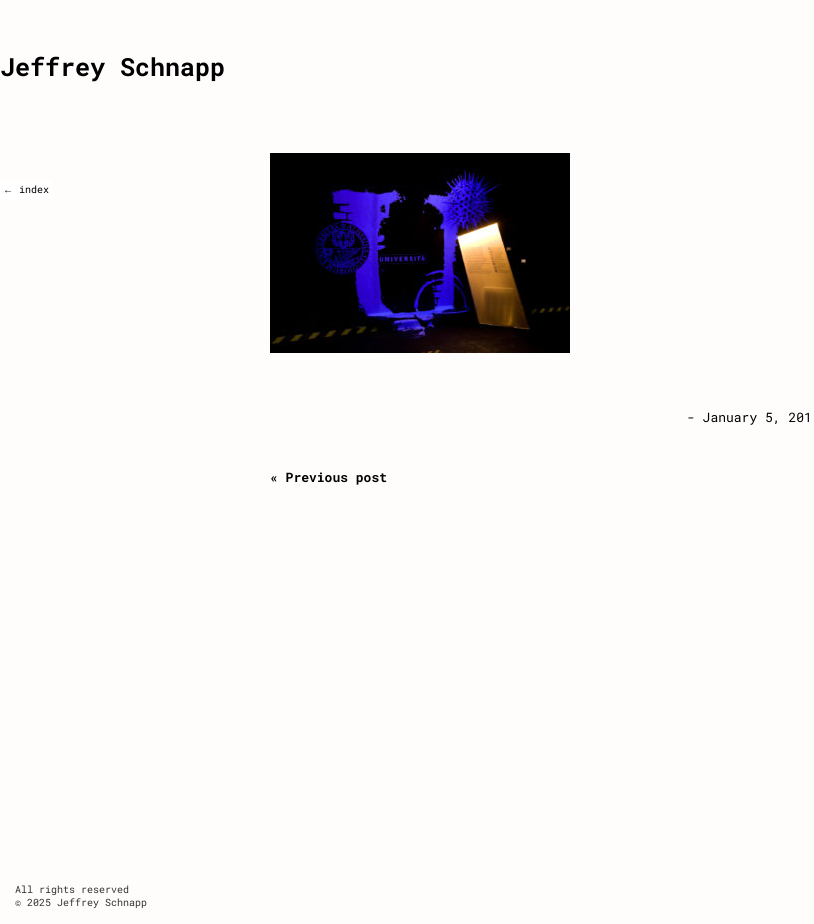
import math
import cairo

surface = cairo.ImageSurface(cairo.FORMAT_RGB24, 814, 924)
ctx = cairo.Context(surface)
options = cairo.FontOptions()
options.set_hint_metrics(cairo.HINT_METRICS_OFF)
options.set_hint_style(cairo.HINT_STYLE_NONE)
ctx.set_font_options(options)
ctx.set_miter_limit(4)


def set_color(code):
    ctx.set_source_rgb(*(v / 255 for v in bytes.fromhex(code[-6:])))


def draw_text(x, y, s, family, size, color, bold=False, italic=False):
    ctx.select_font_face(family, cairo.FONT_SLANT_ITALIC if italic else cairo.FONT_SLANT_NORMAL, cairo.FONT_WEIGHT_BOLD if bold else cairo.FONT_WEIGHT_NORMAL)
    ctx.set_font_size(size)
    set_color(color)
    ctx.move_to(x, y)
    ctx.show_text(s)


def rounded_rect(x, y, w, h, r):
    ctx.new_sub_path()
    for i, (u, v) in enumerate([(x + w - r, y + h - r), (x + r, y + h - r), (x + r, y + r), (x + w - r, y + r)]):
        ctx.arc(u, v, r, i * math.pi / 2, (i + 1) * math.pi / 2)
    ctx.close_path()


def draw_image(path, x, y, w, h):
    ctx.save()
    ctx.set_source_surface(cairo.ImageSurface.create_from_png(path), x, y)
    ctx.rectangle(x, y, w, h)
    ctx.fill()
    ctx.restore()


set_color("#fffcfc")
ctx.paint()
draw_text(0, 76, "Jeffrey Schnapp", "Roboto Mono", 25, "#000000", bold=True)
set_color("#ffffff")
rounded_rect(0, 180, 52, 19, 2)
ctx.fill()
draw_text(3, 193, "←", "Liberation Serif", 10, "#000000")
draw_text(19, 193, "index", "Roboto Mono", 10, "#000000")
draw_image("assets/img1.png", 270, 153, 300, 200)
draw_text(687, 422, "- January 5, 201", "Roboto Mono", 13, "#000000")
draw_text(270, 482, "« Previous post", "Roboto Mono", 13, "#000000", bold=True)
draw_text(15, 893, "All rights reserved", "Roboto Mono", 10, "#333333")
draw_text(15, 906, "© 2025 Jeffrey Schnapp", "Roboto Mono", 10, "#333333")
surface.write_to_png("output.png")
